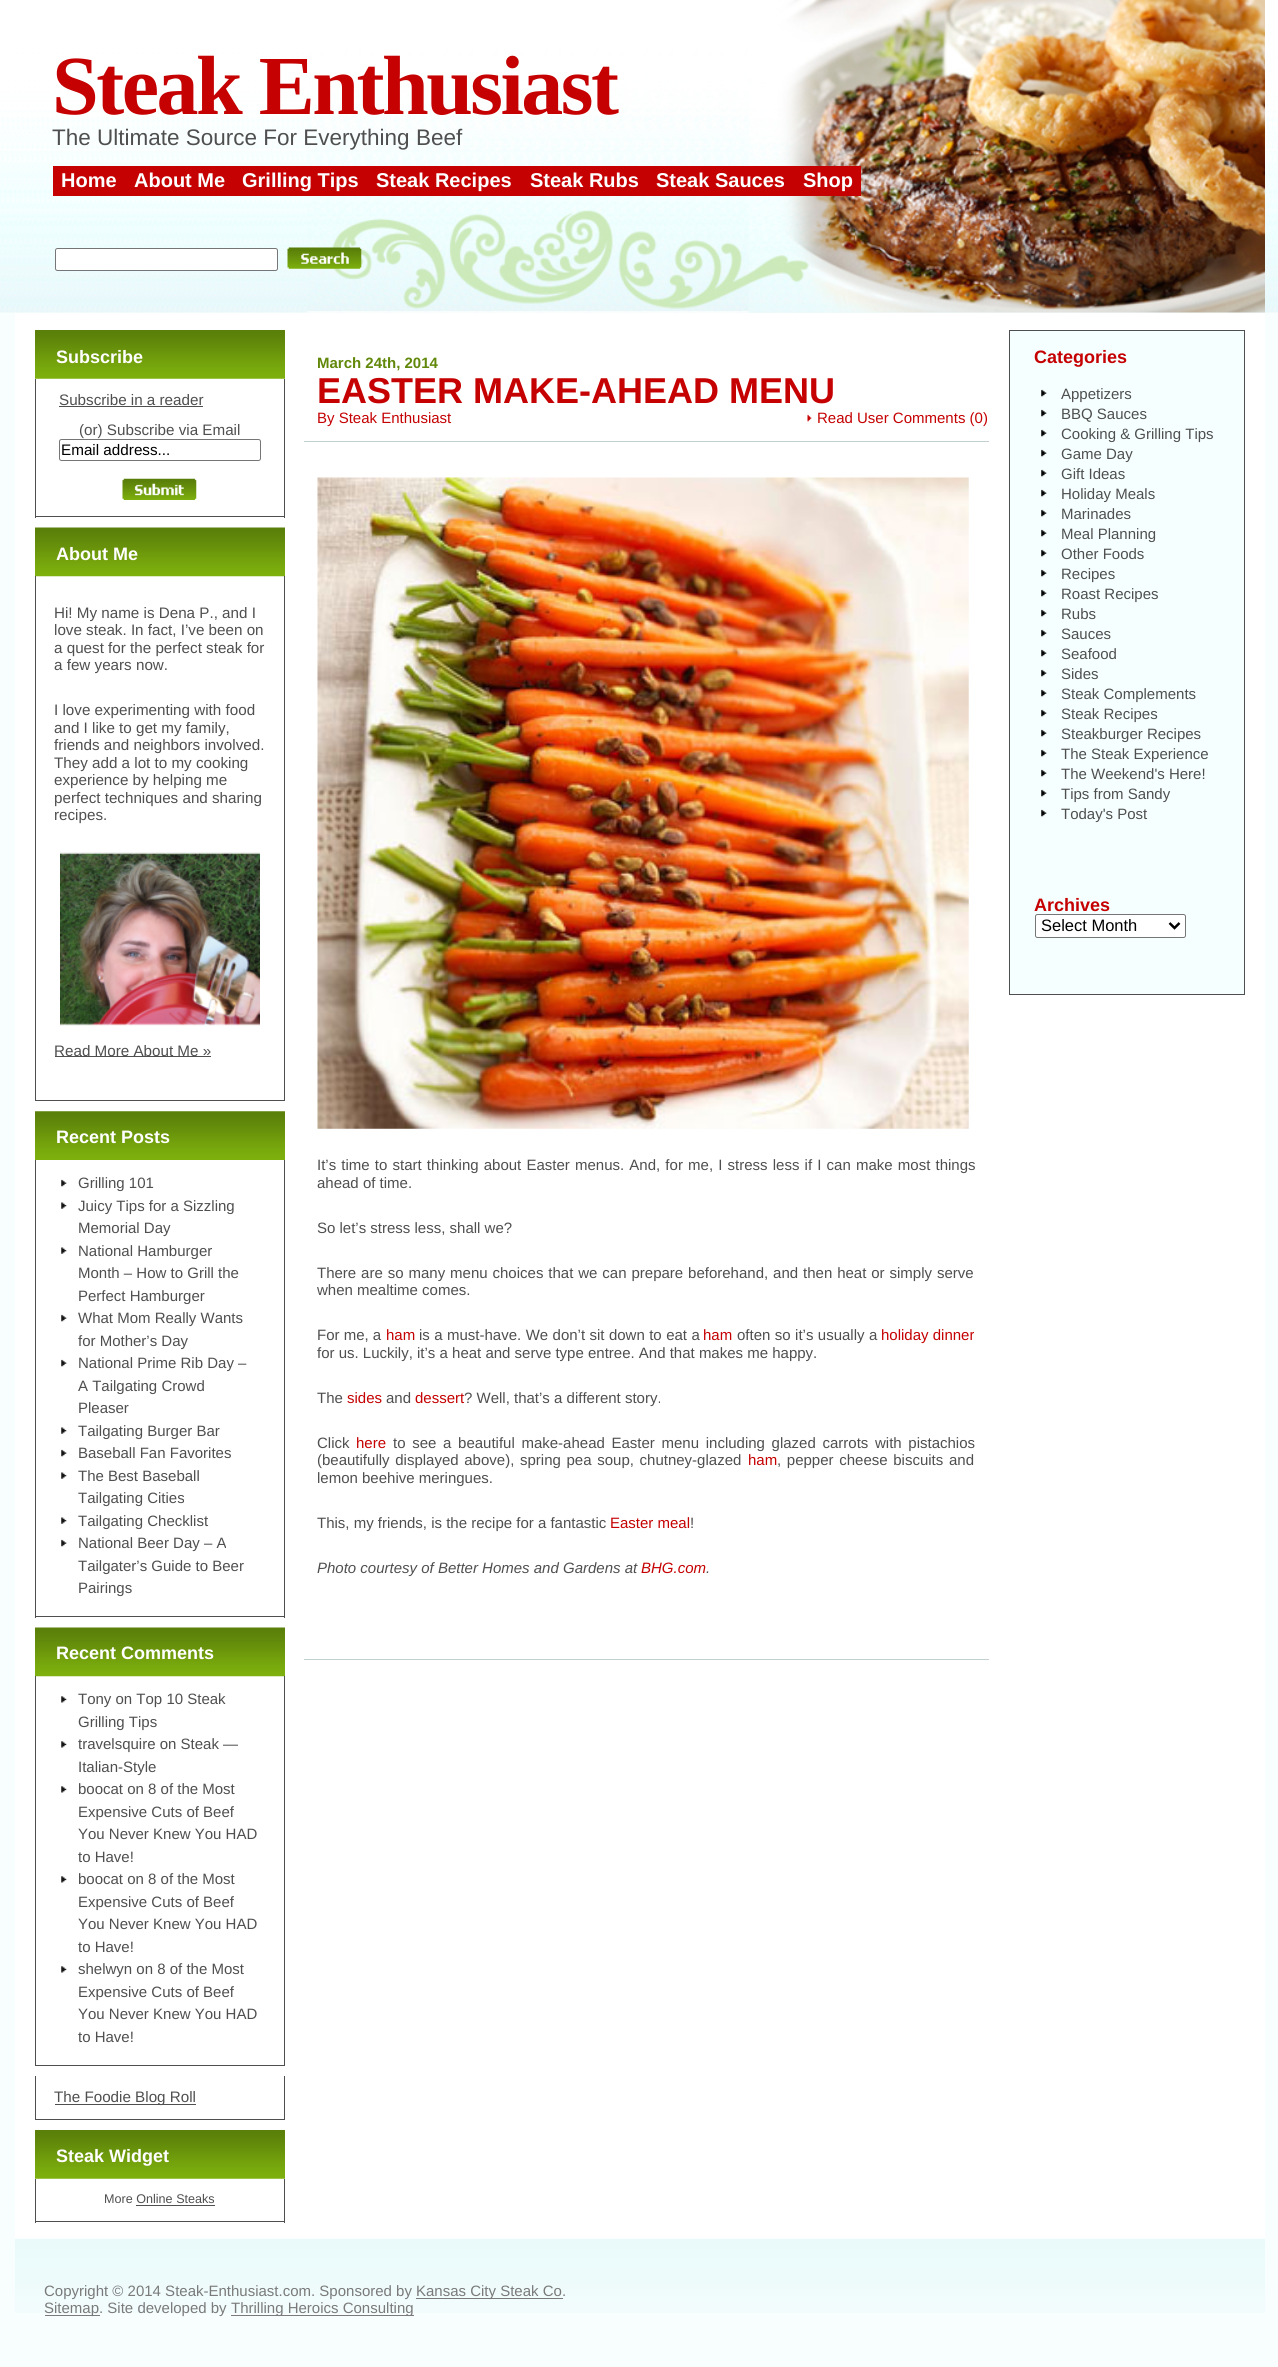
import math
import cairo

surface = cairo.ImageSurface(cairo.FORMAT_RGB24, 1278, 2367)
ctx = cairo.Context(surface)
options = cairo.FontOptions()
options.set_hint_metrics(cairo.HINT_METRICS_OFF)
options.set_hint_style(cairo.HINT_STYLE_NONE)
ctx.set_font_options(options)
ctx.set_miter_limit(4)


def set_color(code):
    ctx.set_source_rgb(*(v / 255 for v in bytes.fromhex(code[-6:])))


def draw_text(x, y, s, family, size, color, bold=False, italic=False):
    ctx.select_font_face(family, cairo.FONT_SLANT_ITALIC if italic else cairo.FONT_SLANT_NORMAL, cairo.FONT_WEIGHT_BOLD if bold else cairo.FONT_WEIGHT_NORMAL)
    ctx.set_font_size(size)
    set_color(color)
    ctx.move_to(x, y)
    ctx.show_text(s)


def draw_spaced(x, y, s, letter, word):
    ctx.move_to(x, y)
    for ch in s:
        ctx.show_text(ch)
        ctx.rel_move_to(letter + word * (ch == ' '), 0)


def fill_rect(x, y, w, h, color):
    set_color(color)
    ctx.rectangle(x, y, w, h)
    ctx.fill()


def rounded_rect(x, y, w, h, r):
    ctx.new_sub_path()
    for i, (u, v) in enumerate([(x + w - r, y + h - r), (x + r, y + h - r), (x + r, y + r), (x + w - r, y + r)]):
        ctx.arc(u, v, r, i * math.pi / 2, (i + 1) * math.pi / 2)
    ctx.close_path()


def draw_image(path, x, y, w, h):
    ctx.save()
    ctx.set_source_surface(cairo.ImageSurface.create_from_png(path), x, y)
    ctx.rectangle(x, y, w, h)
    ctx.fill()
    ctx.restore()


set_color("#f8fdfd")
ctx.paint()
draw_image("assets/img1.png", 0, 0, 1278, 313)
draw_image("assets/img2.png", 307, 0, 958, 313)
ctx.select_font_face("Liberation Serif", cairo.FONT_SLANT_NORMAL, cairo.FONT_WEIGHT_BOLD)
ctx.set_font_size(84)
set_color("#c50102")
draw_spaced(52, 114, "Steak Enthusiast", -2.5, 0)
draw_text(52, 145, "The Ultimate Source For Everything Beef", "Liberation Sans", 22.5, "#4f4f4f")
fill_rect(53, 166, 808, 30, "#c50102")
draw_text(61, 187, "Home", "Liberation Sans", 20, "#ffffff", bold=True)
draw_text(134, 187, "About Me", "Liberation Sans", 20, "#ffffff", bold=True)
draw_text(242, 187, "Grilling Tips", "Liberation Sans", 20, "#ffffff", bold=True)
draw_text(376, 187, "Steak Recipes", "Liberation Sans", 20, "#ffffff", bold=True)
draw_text(530, 187, "Steak Rubs", "Liberation Sans", 20, "#ffffff", bold=True)
draw_text(656, 187, "Steak Sauces", "Liberation Sans", 20, "#ffffff", bold=True)
draw_text(803, 187, "Shop", "Liberation Sans", 20, "#ffffff", bold=True)
rounded_rect(55.5, 248.5, 222, 22, 2)
ctx.fill_preserve()
set_color("#767676")
ctx.set_line_width(1)
ctx.stroke()
draw_image("assets/img3.png", 287, 247, 75, 22)
fill_rect(15, 313, 1250, 1926, "#ffffff")
draw_image("assets/img4.png", 35, 330, 250, 49)
draw_text(56, 363, "Subscribe", "Liberation Sans", 18, "#ffffff", bold=True)
fill_rect(284, 379, 1, 139, "#4f4f4f")
fill_rect(35, 516, 250, 1, "#4f4f4f")
fill_rect(35, 379, 1, 139, "#4f4f4f")
draw_text(59, 405, "Subscribe in a reader", "Liberation Sans", 15.2, "#4f4f4f")
fill_rect(59, 406, 144, 1, "#4f4f4f")
draw_text(79, 435, "(or) Subscribe via Email", "Liberation Sans", 15.2, "#4f4f4f")
rounded_rect(59.5, 439.5, 201, 21, 2)
set_color("#767676")
ctx.stroke()
draw_text(61, 455, "Email address...", "Liberation Sans", 15.25, "#000000")
draw_image("assets/img5.png", 122, 478, 75, 22)
draw_image("assets/img6.png", 35, 527, 250, 50)
draw_text(56, 560, "About Me", "Liberation Sans", 18, "#ffffff", bold=True)
fill_rect(284, 576, 1, 525, "#4f4f4f")
fill_rect(35, 1100, 250, 1, "#4f4f4f")
fill_rect(35, 576, 1, 525, "#4f4f4f")
draw_text(54, 618, "Hi! My name is Dena P., and I", "Liberation Sans", 15.2, "#4f4f4f")
draw_text(54, 635, "love steak. In fact, I’ve been on", "Liberation Sans", 15.2, "#4f4f4f")
draw_text(54, 653, "a quest for the perfect steak for", "Liberation Sans", 15.2, "#4f4f4f")
draw_text(54, 670, "a few years now.", "Liberation Sans", 15.2, "#4f4f4f")
draw_text(54, 715, "I love experimenting with food", "Liberation Sans", 15.2, "#4f4f4f")
draw_text(54, 733, "and I like to get my family,", "Liberation Sans", 15.2, "#4f4f4f")
draw_text(54, 750, "friends and neighbors involved.", "Liberation Sans", 15.2, "#4f4f4f")
draw_text(54, 768, "They add a lot to my cooking", "Liberation Sans", 15.2, "#4f4f4f")
draw_text(54, 785, "experience by helping me", "Liberation Sans", 15.2, "#4f4f4f")
draw_text(54, 803, "perfect techniques and sharing", "Liberation Sans", 15.2, "#4f4f4f")
draw_text(54, 820, "recipes.", "Liberation Sans", 15.2, "#4f4f4f")
draw_image("assets/img7.png", 60, 852, 200, 174)
fill_rect(55, 1056, 156, 1, "#4f4f4f")
draw_text(54, 1056, "Read More About Me »", "Liberation Sans", 15.2, "#4f4f4f")
draw_image("assets/img8.png", 35, 1111, 250, 49)
draw_text(56, 1143, "Recent Posts", "Liberation Sans", 18, "#ffffff", bold=True)
fill_rect(284, 1160, 1, 458, "#4f4f4f")
fill_rect(35, 1616, 250, 1, "#4f4f4f")
fill_rect(35, 1160, 1, 458, "#4f4f4f")
draw_image("assets/img9.png", 61, 1179, 6, 8)
draw_text(78, 1188, "Grilling 101", "Liberation Sans", 15, "#4f4f4f")
draw_image("assets/img10.png", 61, 1202, 6, 7)
draw_text(78, 1211, "Juicy Tips for a Sizzling", "Liberation Sans", 15, "#4f4f4f")
draw_text(78, 1233, "Memorial Day", "Liberation Sans", 15, "#4f4f4f")
draw_image("assets/img10.png", 61, 1247, 6, 7)
draw_text(78, 1256, "National Hamburger", "Liberation Sans", 15, "#4f4f4f")
draw_text(78, 1278, "Month – How to Grill the", "Liberation Sans", 15, "#4f4f4f")
draw_text(78, 1301, "Perfect Hamburger", "Liberation Sans", 15, "#4f4f4f")
draw_image("assets/img11.png", 61, 1314, 6, 8)
draw_text(78, 1323, "What Mom Really Wants", "Liberation Sans", 15, "#4f4f4f")
draw_text(78, 1346, "for Mother’s Day", "Liberation Sans", 15, "#4f4f4f")
draw_image("assets/img11.png", 61, 1359, 6, 8)
draw_text(78, 1368, "National Prime Rib Day –", "Liberation Sans", 15, "#4f4f4f")
draw_text(78, 1391, "A Tailgating Crowd", "Liberation Sans", 15, "#4f4f4f")
draw_text(78, 1413, "Pleaser", "Liberation Sans", 15, "#4f4f4f")
draw_image("assets/img10.png", 61, 1427, 6, 7)
draw_text(78, 1436, "Tailgating Burger Bar", "Liberation Sans", 15, "#4f4f4f")
draw_image("assets/img11.png", 61, 1449, 6, 8)
draw_text(78, 1458, "Baseball Fan Favorites", "Liberation Sans", 15, "#4f4f4f")
draw_image("assets/img10.png", 61, 1472, 6, 7)
draw_text(78, 1481, "The Best Baseball", "Liberation Sans", 15, "#4f4f4f")
draw_text(78, 1503, "Tailgating Cities", "Liberation Sans", 15, "#4f4f4f")
draw_image("assets/img10.png", 61, 1517, 6, 7)
draw_text(78, 1526, "Tailgating Checklist", "Liberation Sans", 15, "#4f4f4f")
draw_image("assets/img11.png", 61, 1539, 6, 8)
draw_text(78, 1548, "National Beer Day – A", "Liberation Sans", 15, "#4f4f4f")
draw_text(78, 1571, "Tailgater’s Guide to Beer", "Liberation Sans", 15, "#4f4f4f")
draw_text(78, 1593, "Pairings", "Liberation Sans", 15, "#4f4f4f")
draw_image("assets/img6.png", 35, 1627, 250, 50)
draw_text(56, 1659, "Recent Comments", "Liberation Sans", 18, "#ffffff", bold=True)
fill_rect(284, 1676, 1, 390, "#4f4f4f")
fill_rect(35, 2065, 250, 1, "#4f4f4f")
fill_rect(35, 1676, 1, 390, "#4f4f4f")
draw_image("assets/img12.png", 61, 1696, 6, 7)
draw_text(78, 1704, "Tony on Top 10 Steak", "Liberation Sans", 15, "#4f4f4f")
draw_text(78, 1727, "Grilling Tips", "Liberation Sans", 15, "#4f4f4f")
draw_image("assets/img12.png", 61, 1741, 6, 7)
draw_text(78, 1749, "travelsquire on Steak —", "Liberation Sans", 15, "#4f4f4f")
draw_text(78, 1772, "Italian-Style", "Liberation Sans", 15, "#4f4f4f")
draw_image("assets/img12.png", 61, 1786, 6, 7)
draw_text(78, 1794, "boocat on 8 of the Most", "Liberation Sans", 15, "#4f4f4f")
draw_text(78, 1817, "Expensive Cuts of Beef", "Liberation Sans", 15, "#4f4f4f")
draw_text(78, 1839, "You Never Knew You HAD", "Liberation Sans", 15, "#4f4f4f")
draw_text(78, 1862, "to Have!", "Liberation Sans", 15, "#4f4f4f")
draw_image("assets/img12.png", 61, 1876, 6, 7)
draw_text(78, 1884, "boocat on 8 of the Most", "Liberation Sans", 15, "#4f4f4f")
draw_text(78, 1907, "Expensive Cuts of Beef", "Liberation Sans", 15, "#4f4f4f")
draw_text(78, 1929, "You Never Knew You HAD", "Liberation Sans", 15, "#4f4f4f")
draw_text(78, 1952, "to Have!", "Liberation Sans", 15, "#4f4f4f")
draw_image("assets/img12.png", 61, 1966, 6, 7)
draw_text(78, 1974, "shelwyn on 8 of the Most", "Liberation Sans", 15, "#4f4f4f")
draw_text(78, 1997, "Expensive Cuts of Beef", "Liberation Sans", 15, "#4f4f4f")
draw_text(78, 2019, "You Never Knew You HAD", "Liberation Sans", 15, "#4f4f4f")
draw_text(78, 2042, "to Have!", "Liberation Sans", 15, "#4f4f4f")
fill_rect(284, 2076, 1, 44, "#4f4f4f")
fill_rect(35, 2119, 250, 1, "#4f4f4f")
fill_rect(35, 2076, 1, 44, "#4f4f4f")
fill_rect(55, 2104, 141, 1, "#4f4f4f")
draw_text(54, 2102, "The Foodie Blog Roll", "Liberation Sans", 15.2, "#4f4f4f")
draw_image("assets/img4.png", 35, 2130, 250, 49)
draw_text(56, 2162, "Steak Widget", "Liberation Sans", 18, "#ffffff", bold=True)
fill_rect(284, 2179, 1, 44, "#4f4f4f")
fill_rect(35, 2221, 250, 1, "#4f4f4f")
fill_rect(35, 2179, 1, 44, "#4f4f4f")
draw_text(104, 2203, "More Online Steaks", "Liberation Sans", 12.6, "#4f4f4f")
fill_rect(136, 2205, 79, 1, "#4f4f4f")
draw_text(317, 368, "March 24th, 2014", "Liberation Sans", 15, "#61880a", bold=True)
draw_text(317, 403, "EASTER MAKE-AHEAD MENU", "Liberation Sans", 36, "#c50102", bold=True)
draw_text(317, 423, "By Steak Enthusiast", "Liberation Sans", 15, "#c50102")
draw_image("assets/img13.png", 807, 414, 5, 8)
draw_text(817, 423, "Read User Comments (0)", "Liberation Sans", 15, "#c50102")
fill_rect(304, 441, 685, 1, "#c2d0d0")
draw_image("assets/img14.png", 317, 477, 652, 652)
set_color("#4f4f4f")
draw_spaced(317, 1170, "It’s time to start thinking about Easter menus. And, for me, I stress less if I can make most things", 0, 1)
draw_text(317, 1188, "ahead of time.", "Liberation Sans", 15, "#4f4f4f")
draw_text(317, 1233, "So let’s stress less, shall we?", "Liberation Sans", 15, "#4f4f4f")
draw_spaced(317, 1278, "There are so many menu choices that we can prepare beforehand, and then heat or simply serve", 0, 0.75)
draw_text(317, 1295, "when mealtime comes.", "Liberation Sans", 15, "#4f4f4f")
draw_text(317, 1340, "For me, a", "Liberation Sans", 15, "#4f4f4f")
draw_text(386, 1340, "ham", "Liberation Sans", 15, "#c50102")
set_color("#4f4f4f")
draw_spaced(419, 1340, "is a must-have. We don’t sit down to eat a", 0, 0.25)
draw_text(703, 1340, "ham", "Liberation Sans", 15, "#c50102")
set_color("#4f4f4f")
draw_spaced(737, 1340, "often so it’s usually a", 0, 0.25)
draw_text(881, 1340, "holiday dinner", "Liberation Sans", 15, "#c50102")
draw_text(317, 1358, "for us. Luckily, it’s a heat and serve type entree. And that makes me happy.", "Liberation Sans", 15, "#4f4f4f")
draw_text(317, 1403, "The", "Liberation Sans", 15, "#4f4f4f")
draw_text(347, 1403, "sides", "Liberation Sans", 15, "#c50102")
draw_text(386, 1403, "and", "Liberation Sans", 15, "#4f4f4f")
draw_text(415, 1403, "dessert", "Liberation Sans", 15, "#c50102")
draw_text(464, 1403, "? Well, that’s a different story.", "Liberation Sans", 15, "#4f4f4f")
draw_text(317, 1448, "Click", "Liberation Sans", 15, "#4f4f4f")
draw_text(356, 1448, "here", "Liberation Sans", 15, "#c50102")
set_color("#4f4f4f")
draw_spaced(393, 1448, "to see a beautiful make-ahead Easter menu including glazed carrots with pistachios", 0, 2.5)
draw_spaced(317, 1465, "(beautifully displayed above), spring pea soup, chutney-glazed", 0, 1.5)
draw_text(748, 1465, "ham", "Liberation Sans", 15, "#c50102")
set_color("#4f4f4f")
draw_spaced(777, 1465, ", pepper cheese biscuits and", 0, 1.5)
draw_text(317, 1483, "lemon beehive meringues.", "Liberation Sans", 15, "#4f4f4f")
draw_text(317, 1528, "This, my friends, is the recipe for a fantastic", "Liberation Sans", 15, "#4f4f4f")
draw_text(610, 1528, "Easter meal", "Liberation Sans", 15, "#c50102")
draw_text(690, 1528, "!", "Liberation Sans", 15, "#4f4f4f")
draw_text(317, 1573, "Photo courtesy of Better Homes and Gardens at", "Liberation Sans", 15, "#4f4f4f", italic=True)
draw_text(641, 1573, "BHG.com", "Liberation Sans", 15, "#c50102", italic=True)
draw_text(706, 1573, ".", "Liberation Sans", 15, "#4f4f4f", italic=True)
fill_rect(304, 1659, 685, 1, "#c2d0d0")
set_color("#f6ffff")
ctx.rectangle(1009.5, 330.5, 235, 664)
ctx.fill_preserve()
set_color("#4f4f4f")
ctx.stroke()
draw_text(1034, 363, "Categories", "Liberation Sans", 18, "#c50102", bold=True)
draw_image("assets/img15.png", 1041, 389, 6, 8)
draw_text(1061, 399, "Appetizers", "Liberation Sans", 15, "#4f4f4f")
draw_image("assets/img15.png", 1041, 409, 6, 8)
draw_text(1061, 419, "BBQ Sauces", "Liberation Sans", 15, "#4f4f4f")
draw_image("assets/img15.png", 1041, 429, 6, 8)
draw_text(1061, 439, "Cooking & Grilling Tips", "Liberation Sans", 15, "#4f4f4f")
draw_image("assets/img15.png", 1041, 449, 6, 8)
draw_text(1061, 459, "Game Day", "Liberation Sans", 15, "#4f4f4f")
draw_image("assets/img15.png", 1041, 469, 6, 8)
draw_text(1061, 479, "Gift Ideas", "Liberation Sans", 15, "#4f4f4f")
draw_image("assets/img15.png", 1041, 489, 6, 8)
draw_text(1061, 499, "Holiday Meals", "Liberation Sans", 15, "#4f4f4f")
draw_image("assets/img15.png", 1041, 509, 6, 8)
draw_text(1061, 519, "Marinades", "Liberation Sans", 15, "#4f4f4f")
draw_image("assets/img15.png", 1041, 529, 6, 8)
draw_text(1061, 539, "Meal Planning", "Liberation Sans", 15, "#4f4f4f")
draw_image("assets/img15.png", 1041, 549, 6, 8)
draw_text(1061, 559, "Other Foods", "Liberation Sans", 15, "#4f4f4f")
draw_image("assets/img15.png", 1041, 569, 6, 8)
draw_text(1061, 579, "Recipes", "Liberation Sans", 15, "#4f4f4f")
draw_image("assets/img16.png", 1041, 589, 6, 8)
draw_text(1061, 599, "Roast Recipes", "Liberation Sans", 15, "#4f4f4f")
draw_image("assets/img15.png", 1041, 609, 6, 8)
draw_text(1061, 619, "Rubs", "Liberation Sans", 15, "#4f4f4f")
draw_image("assets/img15.png", 1041, 629, 6, 8)
draw_text(1061, 639, "Sauces", "Liberation Sans", 15, "#4f4f4f")
draw_image("assets/img15.png", 1041, 649, 6, 8)
draw_text(1061, 659, "Seafood", "Liberation Sans", 15, "#4f4f4f")
draw_image("assets/img15.png", 1041, 669, 6, 8)
draw_text(1061, 679, "Sides", "Liberation Sans", 15, "#4f4f4f")
draw_image("assets/img15.png", 1041, 689, 6, 8)
draw_text(1061, 699, "Steak Complements", "Liberation Sans", 15, "#4f4f4f")
draw_image("assets/img15.png", 1041, 709, 6, 8)
draw_text(1061, 719, "Steak Recipes", "Liberation Sans", 15, "#4f4f4f")
draw_image("assets/img15.png", 1041, 729, 6, 8)
draw_text(1061, 739, "Steakburger Recipes", "Liberation Sans", 15, "#4f4f4f")
draw_image("assets/img15.png", 1041, 749, 6, 8)
draw_text(1061, 759, "The Steak Experience", "Liberation Sans", 15, "#4f4f4f")
draw_image("assets/img15.png", 1041, 769, 6, 8)
draw_text(1061, 779, "The Weekend's Here!", "Liberation Sans", 15, "#4f4f4f")
draw_image("assets/img15.png", 1041, 789, 6, 8)
draw_text(1061, 799, "Tips from Sandy", "Liberation Sans", 15, "#4f4f4f")
draw_image("assets/img15.png", 1041, 809, 6, 8)
draw_text(1061, 819, "Today's Post", "Liberation Sans", 15, "#4f4f4f")
draw_text(1034, 911, "Archives", "Liberation Sans", 18, "#c50102", bold=True)
set_color("#ffffff")
rounded_rect(1035.5, 914.5, 150, 23, 2)
ctx.fill_preserve()
set_color("#767676")
ctx.stroke()
ctx.new_path()
ctx.move_to(1169.5, 923)
ctx.line_to(1174.5, 928)
ctx.line_to(1179.5, 923)
set_color("#000000")
ctx.set_line_width(2.5)
ctx.stroke()
draw_text(1041, 931, "Select Month", "Liberation Sans", 16.5, "#000000")
draw_image("assets/img17.png", 15, 2238, 1250, 75)
draw_text(44, 2296, "Copyright © 2014 Steak-Enthusiast.com. Sponsored by", "Liberation Sans", 15, "#7a7a7a")
fill_rect(416, 2298, 147, 1, "#7a7a7a")
draw_text(416, 2296, "Kansas City Steak Co.", "Liberation Sans", 15, "#7a7a7a")
fill_rect(45, 2315, 55, 1, "#7a7a7a")
draw_text(44, 2313, "Sitemap. Site developed by", "Liberation Sans", 15, "#7a7a7a")
fill_rect(231, 2315, 183, 1, "#7a7a7a")
draw_text(231, 2313, "Thrilling Heroics Consulting", "Liberation Sans", 15, "#7a7a7a")
surface.write_to_png("output.png")
